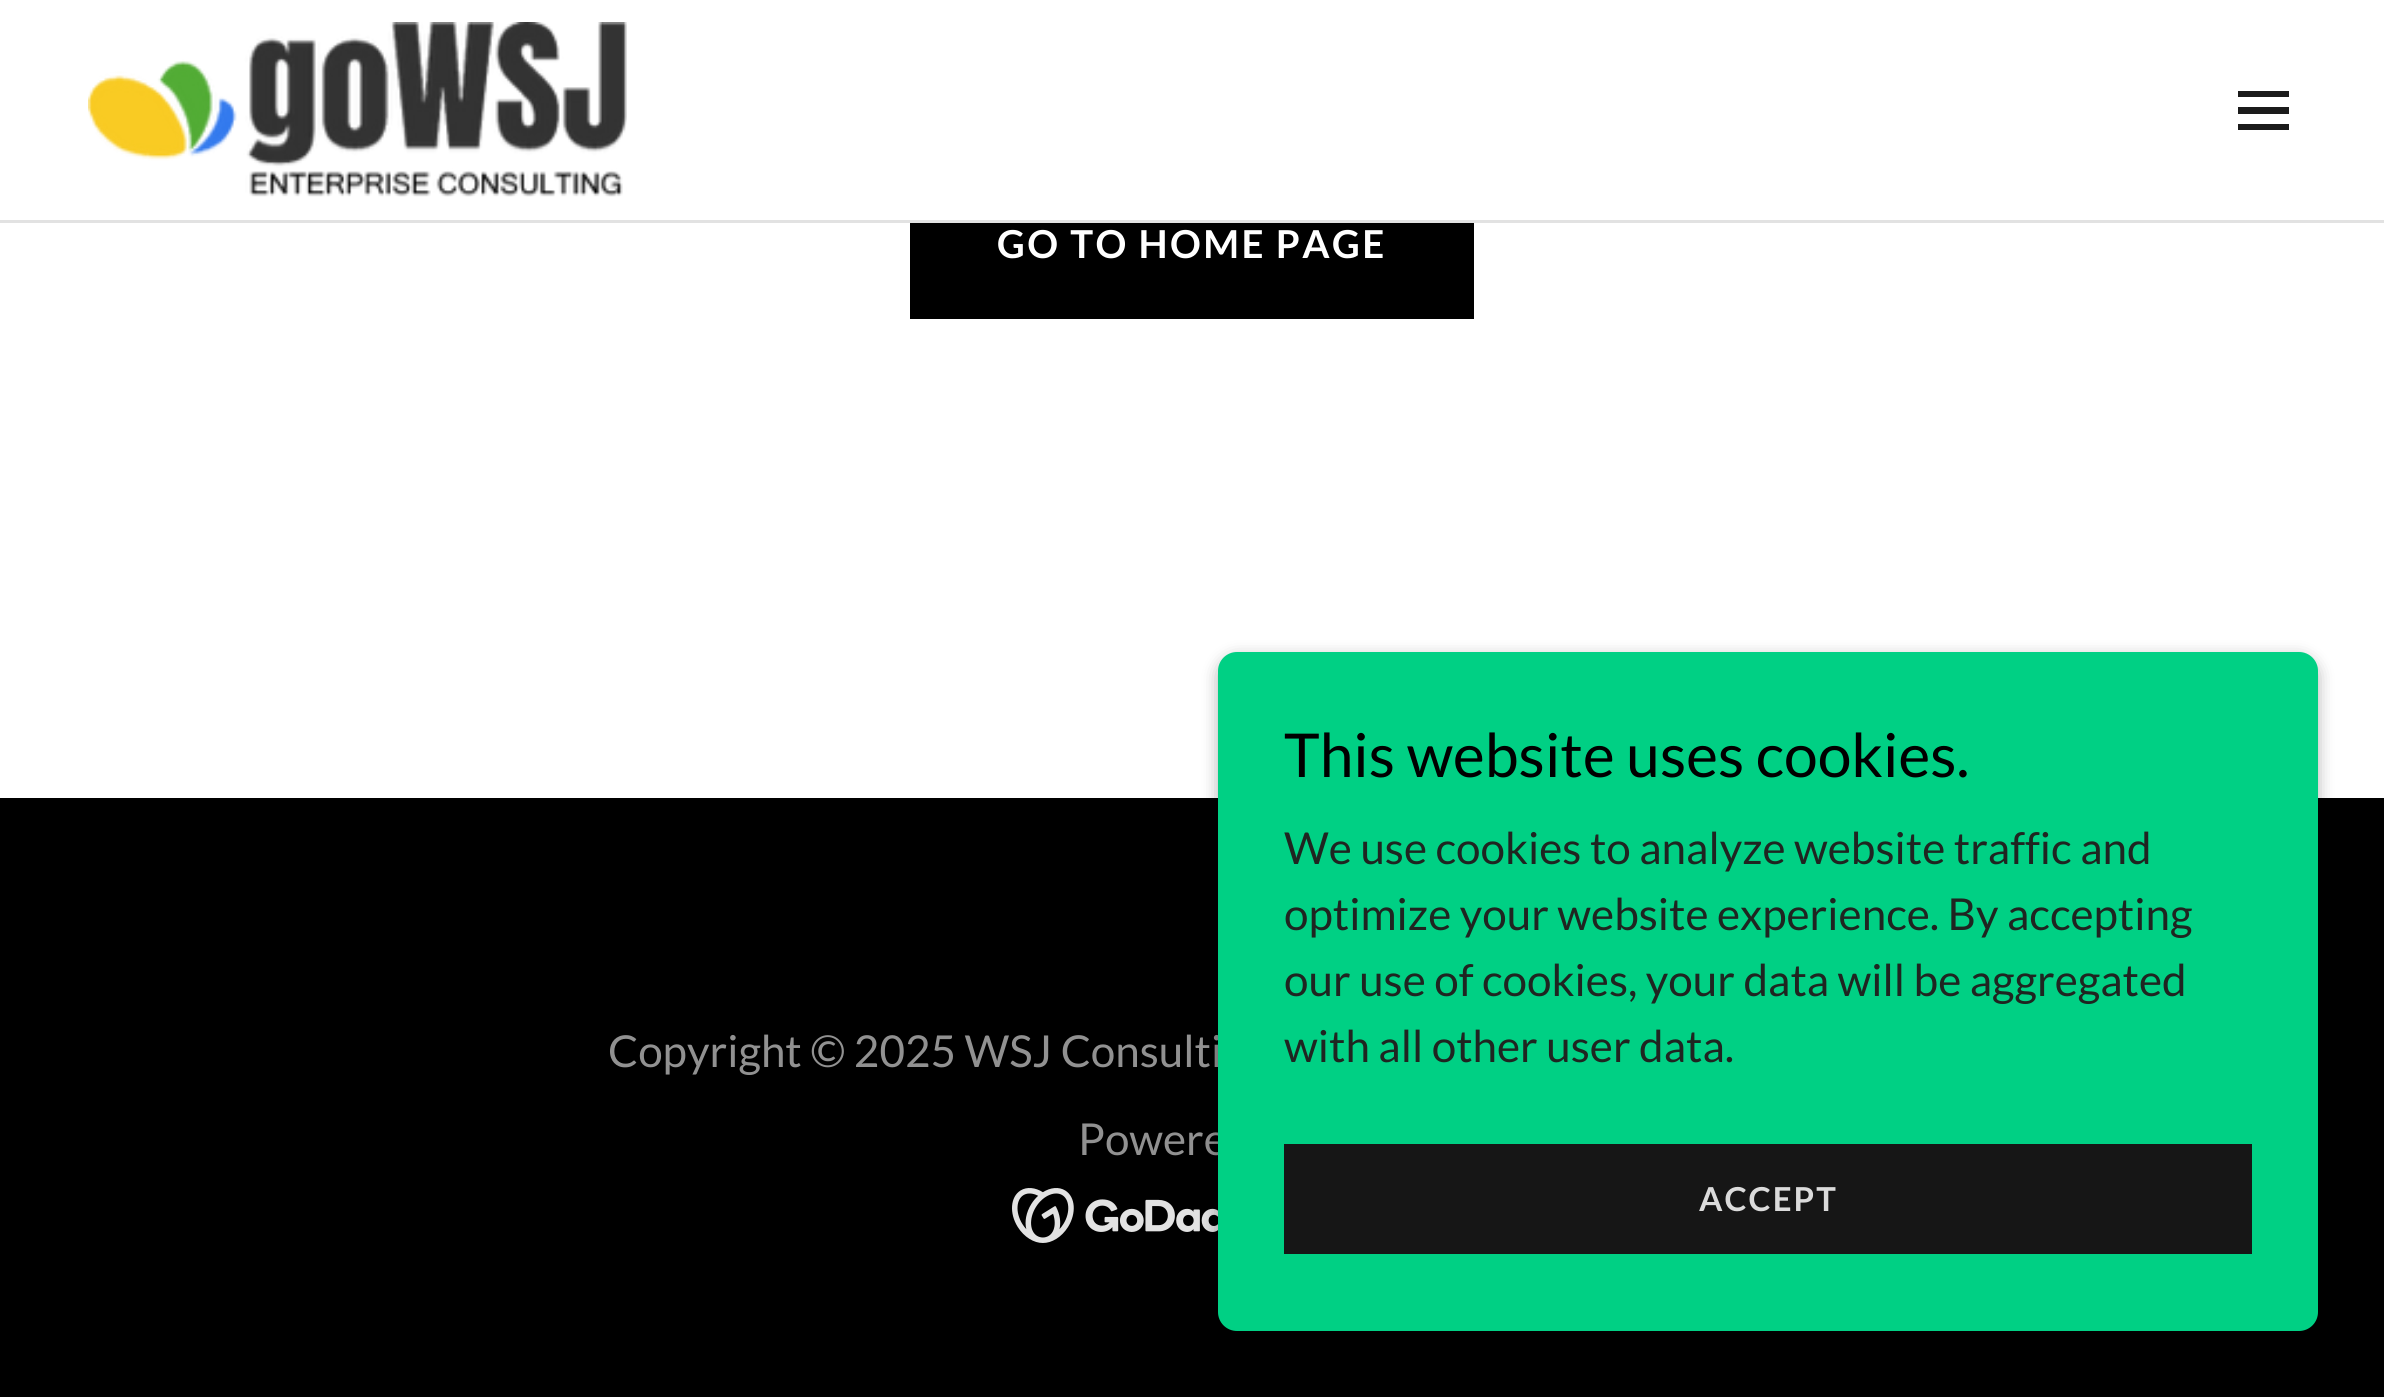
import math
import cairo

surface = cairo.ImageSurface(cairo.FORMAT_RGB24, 2384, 1397)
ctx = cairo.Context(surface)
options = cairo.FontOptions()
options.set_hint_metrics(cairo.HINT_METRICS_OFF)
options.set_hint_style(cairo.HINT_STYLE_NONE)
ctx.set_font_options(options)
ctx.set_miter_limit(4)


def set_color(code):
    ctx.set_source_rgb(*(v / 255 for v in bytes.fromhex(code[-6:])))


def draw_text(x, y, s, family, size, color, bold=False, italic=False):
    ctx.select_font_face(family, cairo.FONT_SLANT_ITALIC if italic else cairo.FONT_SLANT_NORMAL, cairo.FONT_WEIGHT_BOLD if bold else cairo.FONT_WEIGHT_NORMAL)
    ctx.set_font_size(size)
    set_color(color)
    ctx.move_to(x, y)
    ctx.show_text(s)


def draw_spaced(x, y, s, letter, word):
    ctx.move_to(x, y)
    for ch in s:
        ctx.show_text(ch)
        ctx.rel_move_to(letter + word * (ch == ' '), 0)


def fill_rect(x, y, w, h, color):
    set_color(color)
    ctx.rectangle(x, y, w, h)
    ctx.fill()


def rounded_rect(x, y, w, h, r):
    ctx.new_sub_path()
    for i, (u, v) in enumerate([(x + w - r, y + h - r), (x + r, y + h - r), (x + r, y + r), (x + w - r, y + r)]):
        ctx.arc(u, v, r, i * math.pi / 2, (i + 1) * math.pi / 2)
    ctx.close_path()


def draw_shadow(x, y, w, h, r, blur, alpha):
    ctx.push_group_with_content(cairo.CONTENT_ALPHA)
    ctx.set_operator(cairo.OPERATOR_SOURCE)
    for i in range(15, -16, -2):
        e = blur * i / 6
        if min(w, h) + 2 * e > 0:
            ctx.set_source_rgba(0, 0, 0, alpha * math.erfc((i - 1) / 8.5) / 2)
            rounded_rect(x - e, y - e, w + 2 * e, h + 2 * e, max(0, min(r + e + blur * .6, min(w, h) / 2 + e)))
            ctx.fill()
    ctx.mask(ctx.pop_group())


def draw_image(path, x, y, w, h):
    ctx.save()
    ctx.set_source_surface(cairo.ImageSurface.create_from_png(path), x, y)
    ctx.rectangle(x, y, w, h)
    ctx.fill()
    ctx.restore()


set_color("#000000")
ctx.paint()
fill_rect(0, 0, 2384, 220, "#ffffff")
draw_image("assets/img1.png", 88, 22, 539, 175)
fill_rect(2238, 91, 51, 6, "#1b1b1b")
fill_rect(2238, 107, 51, 7, "#1b1b1b")
fill_rect(2238, 124, 51, 6, "#1b1b1b")
fill_rect(0, 220, 2384, 3, "#e2e2e2")
fill_rect(0, 223, 2384, 575, "#ffffff")
fill_rect(910, 223, 564, 96, "#000000")
ctx.select_font_face("Lato", cairo.FONT_SLANT_NORMAL, cairo.FONT_WEIGHT_BOLD)
ctx.set_font_size(38.5)
set_color("#ffffff")
draw_spaced(997, 258, "GO TO HOME PAGE", 2.4, 0)
draw_text(608, 1067, "Copyright © 2025 WSJ Consulti", "Lato", 44, "#919191")
draw_text(1078, 1155, "Powere", "Lato", 44, "#919191")
draw_image("assets/img2.png", 1012, 1188, 206, 55)
set_color("#000000")
draw_shadow(1218, 657, 1100, 680, 19, 8, 0.3)
set_color("#00d084")
rounded_rect(1218, 652, 1100, 679, 19)
ctx.fill()
draw_text(1284, 777, "This website uses cookies.", "Lato", 60.5, "#000000")
draw_text(1284, 864, "We use cookies to analyze website traffic and", "Lato", 44, "#1f2521")
draw_text(1284, 930, "optimize your website experience. By accepting", "Lato", 44, "#1f2521")
draw_text(1284, 996, "our use of cookies, your data will be aggregated", "Lato", 44, "#1f2521")
draw_text(1284, 1062, "with all other user data.", "Lato", 44, "#1f2521")
fill_rect(1284, 1144, 968, 110, "#161616")
ctx.select_font_face("Lato", cairo.FONT_SLANT_NORMAL, cairo.FONT_WEIGHT_BOLD)
ctx.set_font_size(33)
set_color("#dbdbdb")
draw_spaced(1699, 1211, "ACCEPT", 2, 0)
surface.write_to_png("output.png")
